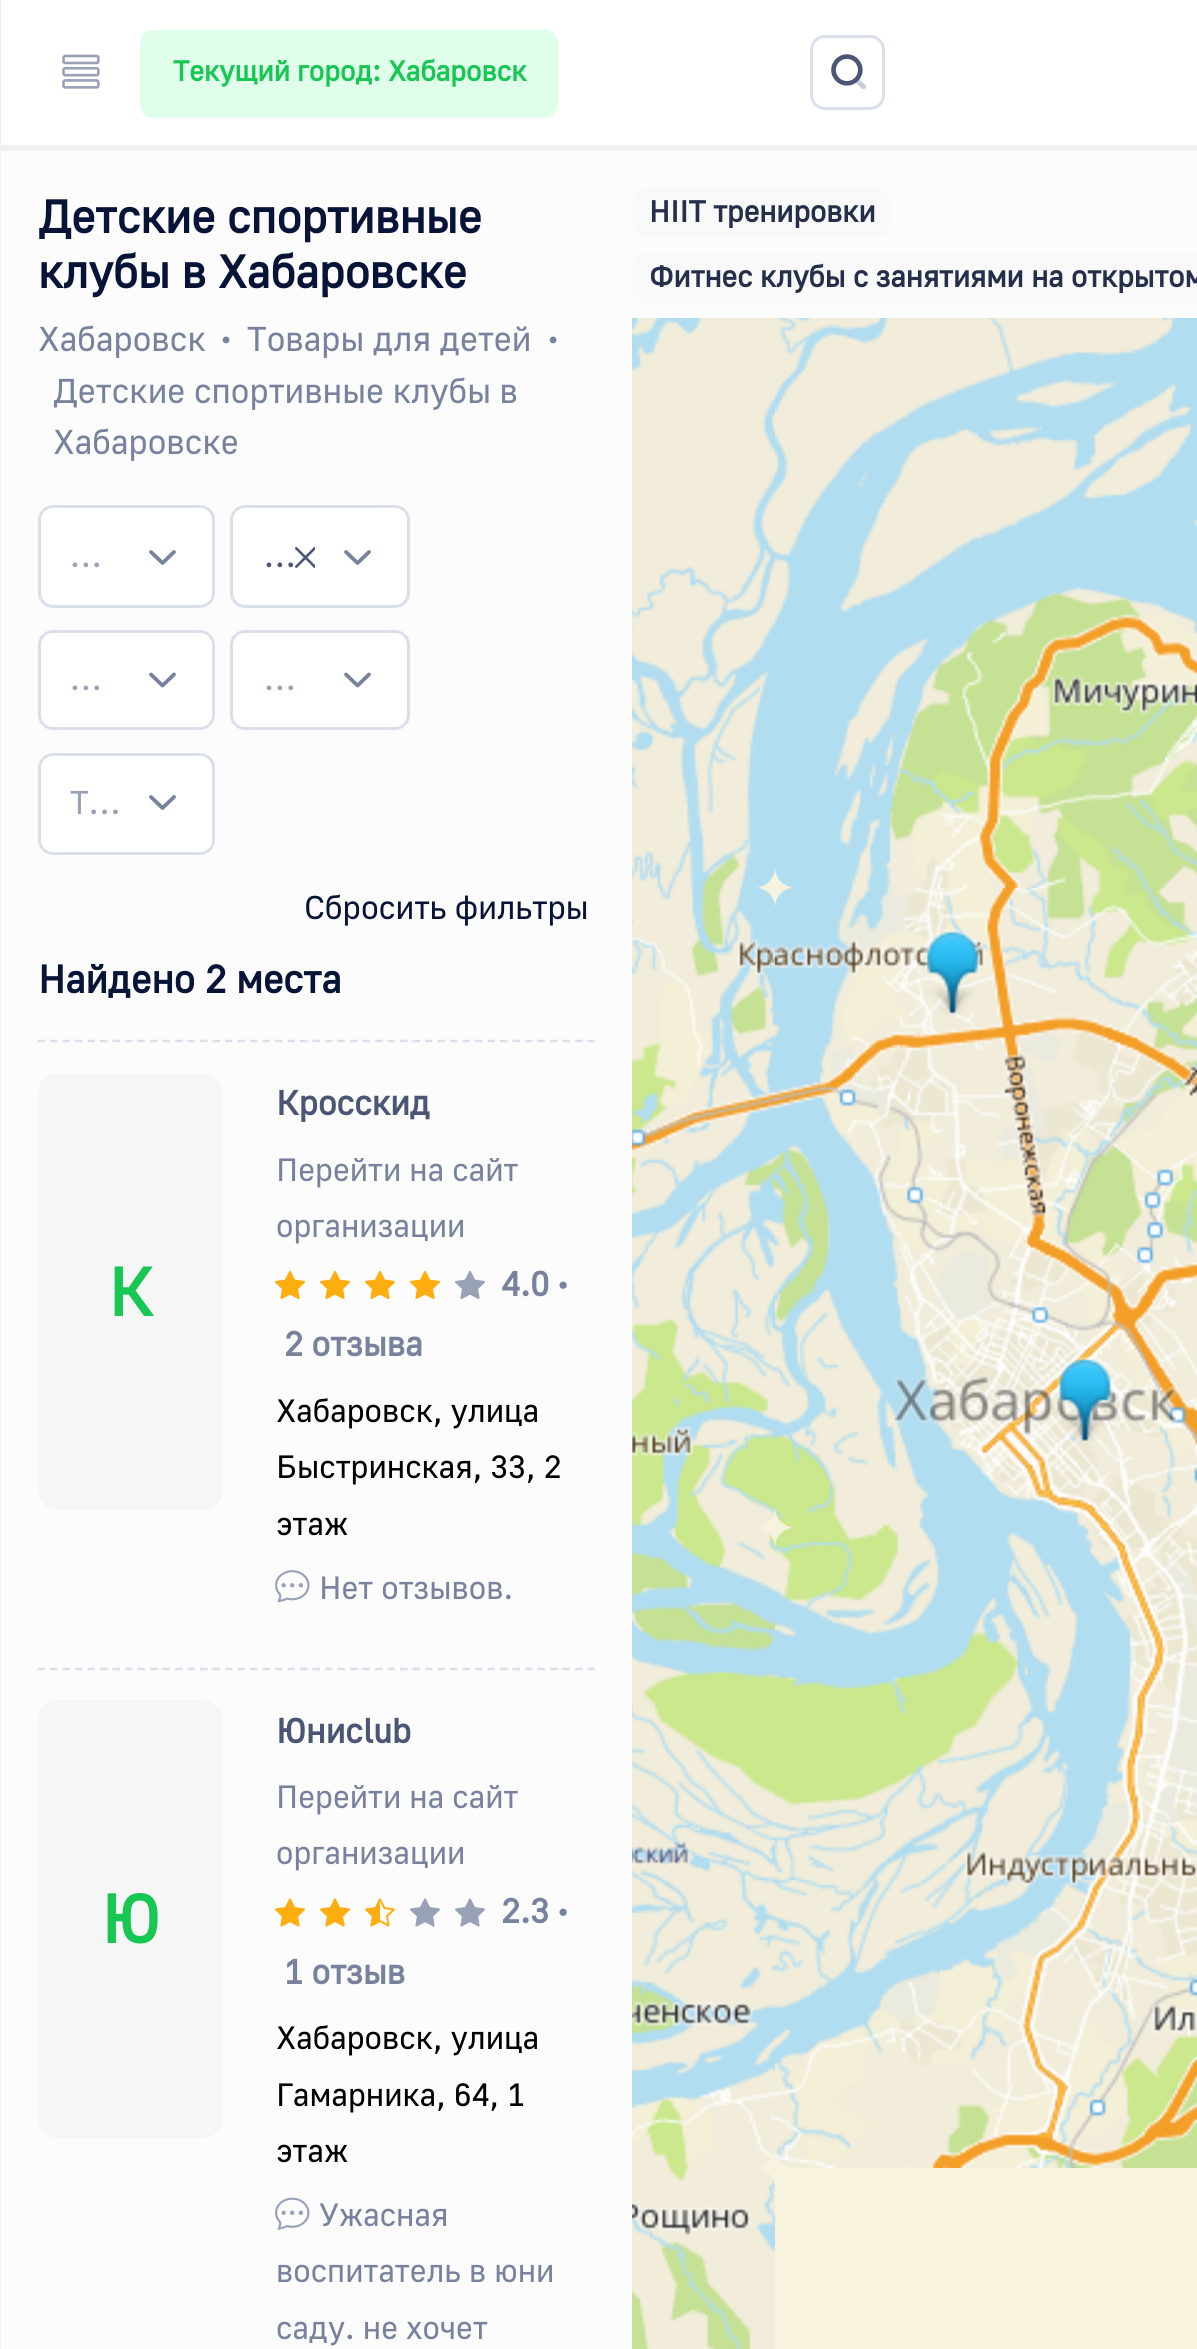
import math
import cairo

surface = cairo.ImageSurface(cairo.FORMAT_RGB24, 1197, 2349)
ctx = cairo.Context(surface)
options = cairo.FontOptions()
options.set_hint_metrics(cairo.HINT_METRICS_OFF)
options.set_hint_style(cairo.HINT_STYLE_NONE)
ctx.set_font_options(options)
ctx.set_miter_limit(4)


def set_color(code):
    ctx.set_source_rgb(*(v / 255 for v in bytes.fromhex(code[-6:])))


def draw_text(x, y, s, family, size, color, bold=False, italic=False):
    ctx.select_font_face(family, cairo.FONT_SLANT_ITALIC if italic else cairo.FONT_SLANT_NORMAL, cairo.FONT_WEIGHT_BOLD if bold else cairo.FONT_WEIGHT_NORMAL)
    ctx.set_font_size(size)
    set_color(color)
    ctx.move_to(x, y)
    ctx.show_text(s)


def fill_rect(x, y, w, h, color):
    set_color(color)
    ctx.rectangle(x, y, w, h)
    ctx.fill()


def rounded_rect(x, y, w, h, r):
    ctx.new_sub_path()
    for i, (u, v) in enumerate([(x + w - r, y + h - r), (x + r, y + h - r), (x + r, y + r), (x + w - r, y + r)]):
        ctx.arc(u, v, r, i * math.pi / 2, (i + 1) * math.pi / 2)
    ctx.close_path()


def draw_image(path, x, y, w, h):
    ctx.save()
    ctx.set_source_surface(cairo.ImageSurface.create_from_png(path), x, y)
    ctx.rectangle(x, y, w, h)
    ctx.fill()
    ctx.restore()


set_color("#fcfcfc")
ctx.paint()
fill_rect(1, 0, 1196, 145, "#ffffff")
fill_rect(0, 145, 1197, 6, "#f1f1f4")
draw_image("assets/img1.png", 62, 54, 38, 35)
set_color("#dfffea")
rounded_rect(140, 30, 418, 88, 13)
ctx.fill()
draw_text(173, 81, "Текущий город: Хабаровск", "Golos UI", 28.5, "#17c653", bold=True)
rounded_rect(811.5, 36.5, 72, 72, 13.5)
set_color("#dbdfe9")
ctx.set_line_width(3)
ctx.stroke()
draw_image("assets/img3.png", 856, 79, 10, 11)
draw_image("assets/img2.png", 831, 54, 32, 32)
fill_rect(0, 0, 1, 2349, "#f1f1f4")
draw_text(38, 233, "Детские спортивные", "Golos UI", 46.25, "#071437", bold=True)
draw_text(38, 288, "клубы в Хабаровске", "Golos UI", 46.25, "#071437", bold=True)
draw_text(38, 351, "Хабаровск", "Golos UI", 34.5, "#78829d")
draw_text(220, 351, "•", "Golos UI", 34.5, "#78829d")
draw_text(247, 351, "Товары для детей", "Golos UI", 34.5, "#78829d")
draw_text(547, 351, "•", "Golos UI", 34.5, "#78829d")
draw_text(53, 403, "Детские спортивные клубы в", "Golos UI", 34.5, "#78829d")
draw_text(53, 454, "Хабаровске", "Golos UI", 34.5, "#78829d")
set_color("#ffffff")
rounded_rect(38, 505, 177, 103, 15)
ctx.fill()
ctx.new_path()
ctx.move_to(151, 552)
ctx.line_to(162.5, 563)
ctx.line_to(174, 552)
set_color("#78829d")
ctx.set_line_width(3.8)
ctx.set_line_cap(cairo.LINE_CAP_ROUND)
ctx.set_line_join(cairo.LINE_JOIN_ROUND)
ctx.stroke()
rounded_rect(39.5, 506.5, 174, 100, 13.5)
set_color("#dbdfe9")
ctx.set_line_width(3)
ctx.set_line_cap(cairo.LINE_CAP_BUTT)
ctx.set_line_join(cairo.LINE_JOIN_MITER)
ctx.stroke()
draw_text(70, 567, "…", "Golos UI", 33, "#99a1b7")
set_color("#ffffff")
rounded_rect(230, 505, 180, 103, 15)
ctx.fill()
ctx.new_path()
ctx.move_to(346, 552)
ctx.line_to(357.5, 563)
ctx.line_to(369, 552)
set_color("#78829d")
ctx.set_line_width(3.8)
ctx.set_line_cap(cairo.LINE_CAP_ROUND)
ctx.set_line_join(cairo.LINE_JOIN_ROUND)
ctx.stroke()
rounded_rect(231.5, 506.5, 177, 100, 13.5)
set_color("#dbdfe9")
ctx.set_line_width(3)
ctx.set_line_cap(cairo.LINE_CAP_BUTT)
ctx.set_line_join(cairo.LINE_JOIN_MITER)
ctx.stroke()
draw_text(264, 567, "…", "Golos UI", 33, "#4b5675")
draw_image("assets/img4.png", 295, 547, 20, 21)
set_color("#ffffff")
rounded_rect(38, 630, 177, 100, 15)
ctx.fill()
ctx.new_path()
ctx.move_to(151, 674.5)
ctx.line_to(162.5, 685.5)
ctx.line_to(174, 674.5)
set_color("#78829d")
ctx.set_line_width(3.8)
ctx.set_line_cap(cairo.LINE_CAP_ROUND)
ctx.set_line_join(cairo.LINE_JOIN_ROUND)
ctx.stroke()
rounded_rect(39.5, 631.5, 174, 97, 13.5)
set_color("#dbdfe9")
ctx.set_line_width(3)
ctx.set_line_cap(cairo.LINE_CAP_BUTT)
ctx.set_line_join(cairo.LINE_JOIN_MITER)
ctx.stroke()
draw_text(70, 690, "…", "Golos UI", 33, "#99a1b7")
set_color("#ffffff")
rounded_rect(230, 630, 180, 100, 15)
ctx.fill()
ctx.new_path()
ctx.move_to(346, 674.5)
ctx.line_to(357.5, 685.5)
ctx.line_to(369, 674.5)
set_color("#78829d")
ctx.set_line_width(3.8)
ctx.set_line_cap(cairo.LINE_CAP_ROUND)
ctx.set_line_join(cairo.LINE_JOIN_ROUND)
ctx.stroke()
rounded_rect(231.5, 631.5, 177, 97, 13.5)
set_color("#dbdfe9")
ctx.set_line_width(3)
ctx.set_line_cap(cairo.LINE_CAP_BUTT)
ctx.set_line_join(cairo.LINE_JOIN_MITER)
ctx.stroke()
draw_text(264, 690, "…", "Golos UI", 33, "#99a1b7")
set_color("#ffffff")
rounded_rect(38, 753, 177, 102, 15)
ctx.fill()
ctx.new_path()
ctx.move_to(151, 797)
ctx.line_to(162.5, 808)
ctx.line_to(174, 797)
set_color("#78829d")
ctx.set_line_width(3.8)
ctx.set_line_cap(cairo.LINE_CAP_ROUND)
ctx.set_line_join(cairo.LINE_JOIN_ROUND)
ctx.stroke()
rounded_rect(39.5, 754.5, 174, 99, 13.5)
set_color("#dbdfe9")
ctx.set_line_width(3)
ctx.set_line_cap(cairo.LINE_CAP_BUTT)
ctx.set_line_join(cairo.LINE_JOIN_MITER)
ctx.stroke()
draw_text(70, 814, "Т…", "Golos UI", 33, "#99a1b7")
draw_text(304, 919, "Сбросить фильтры", "Golos UI", 33, "#071437")
draw_text(38, 993, "Найдено 2 места", "Golos UI", 39.25, "#071437", bold=True)
ctx.new_path()
ctx.move_to(37.5, 1041)
ctx.line_to(595, 1041)
set_color("#dbdfe9")
ctx.set_line_width(2.5)
ctx.set_dash([7.5, 5])
ctx.stroke()
set_color("#f6f6f6")
rounded_rect(38, 1073, 185, 437, 20)
ctx.fill()
draw_text(108, 1316, "К", "Golos UI", 68, "#17c653", bold=True)
draw_text(276, 1115, "Кросскид", "Golos UI", 34.5, "#4b5675", bold=True)
draw_text(276, 1181, "Перейти на сайт", "Golos UI", 32.25, "#78829d")
draw_text(276, 1237, "организации", "Golos UI", 32.25, "#78829d")
draw_image("assets/img5.png", 275, 1271, 30, 28)
draw_image("assets/img5.png", 320, 1271, 30, 28)
draw_image("assets/img5.png", 365, 1271, 30, 28)
draw_image("assets/img5.png", 410, 1271, 30, 28)
draw_image("assets/img6.png", 455, 1271, 30, 28)
draw_text(501, 1296, "4.0", "Golos UI", 34.5, "#78829d", bold=True)
draw_text(557, 1296, "•", "Golos UI", 32.25, "#78829d", bold=True)
draw_text(284, 1356, "2 отзыва", "Golos UI", 34.5, "#78829d", bold=True)
draw_text(276, 1422, "Хабаровск, улица", "Golos UI", 32.25, "#000000")
draw_text(276, 1478, "Быстринская, 33, 2", "Golos UI", 32.25, "#000000")
draw_text(276, 1535, "этаж", "Golos UI", 32.25, "#000000")
draw_image("assets/img7.png", 275, 1570, 35, 33)
draw_text(319, 1599, "Нет отзывов.", "Golos UI", 32.25, "#78829d")
ctx.new_path()
ctx.move_to(37.5, 1669)
ctx.line_to(595, 1669)
set_color("#dbdfe9")
ctx.stroke()
set_color("#f6f6f6")
rounded_rect(38, 1700, 185, 438, 20)
ctx.fill()
draw_text(101, 1943, "Ю", "Golos UI", 68, "#17c653", bold=True)
draw_text(276, 1743, "Юниclub", "Golos UI", 34.5, "#4b5675", bold=True)
draw_text(276, 1808, "Перейти на сайт", "Golos UI", 32.25, "#78829d")
draw_text(276, 1864, "организации", "Golos UI", 32.25, "#78829d")
draw_image("assets/img8.png", 275, 1898, 30, 29)
draw_image("assets/img8.png", 320, 1898, 30, 29)
draw_image("assets/img9.png", 365, 1898, 30, 29)
draw_image("assets/img10.png", 410, 1898, 30, 29)
draw_image("assets/img10.png", 455, 1898, 30, 29)
draw_text(501, 1923, "2.3", "Golos UI", 34.5, "#78829d", bold=True)
draw_text(557, 1923, "•", "Golos UI", 32.25, "#78829d", bold=True)
draw_text(284, 1984, "1 отзыв", "Golos UI", 34.5, "#78829d", bold=True)
draw_text(276, 2049, "Хабаровск, улица", "Golos UI", 32.25, "#000000")
draw_text(276, 2106, "Гамарника, 64, 1", "Golos UI", 32.25, "#000000")
draw_text(276, 2162, "этаж", "Golos UI", 32.25, "#000000")
draw_image("assets/img11.png", 275, 2197, 35, 33)
draw_text(319, 2226, "Ужасная", "Golos UI", 32.25, "#78829d")
draw_text(276, 2282, "воспитатель в юни", "Golos UI", 32.25, "#78829d")
draw_text(276, 2339, "саду. не хочет", "Golos UI", 32.25, "#78829d")
set_color("#f9f9f9")
rounded_rect(633, 188, 257, 50, 13)
ctx.fill()
draw_text(649, 222, "HIIT тренировки", "Golos UI", 30, "#252f4a", bold=True)
set_color("#f9f9f9")
rounded_rect(633, 253, 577, 50, 13)
ctx.fill()
draw_text(649, 287, "Фитнес клубы с занятиями на открытом", "Golos UI", 30, "#252f4a", bold=True)
fill_rect(755, 867, 442, 1482, "#f7f3df")
draw_image("assets/img12.png", 632, 318, 143, 570)
draw_image("assets/img13.png", 775, 318, 422, 570)
draw_image("assets/img14.png", 632, 888, 143, 640)
draw_image("assets/img15.png", 775, 888, 422, 640)
draw_image("assets/img16.png", 632, 1528, 143, 640)
draw_image("assets/img17.png", 775, 1528, 422, 640)
draw_image("assets/img18.png", 632, 2168, 143, 181)
draw_image("assets/img19.png", 925, 929, 55, 86)
draw_image("assets/img20.png", 1057, 1357, 56, 85)
surface.write_to_png("output.png")
